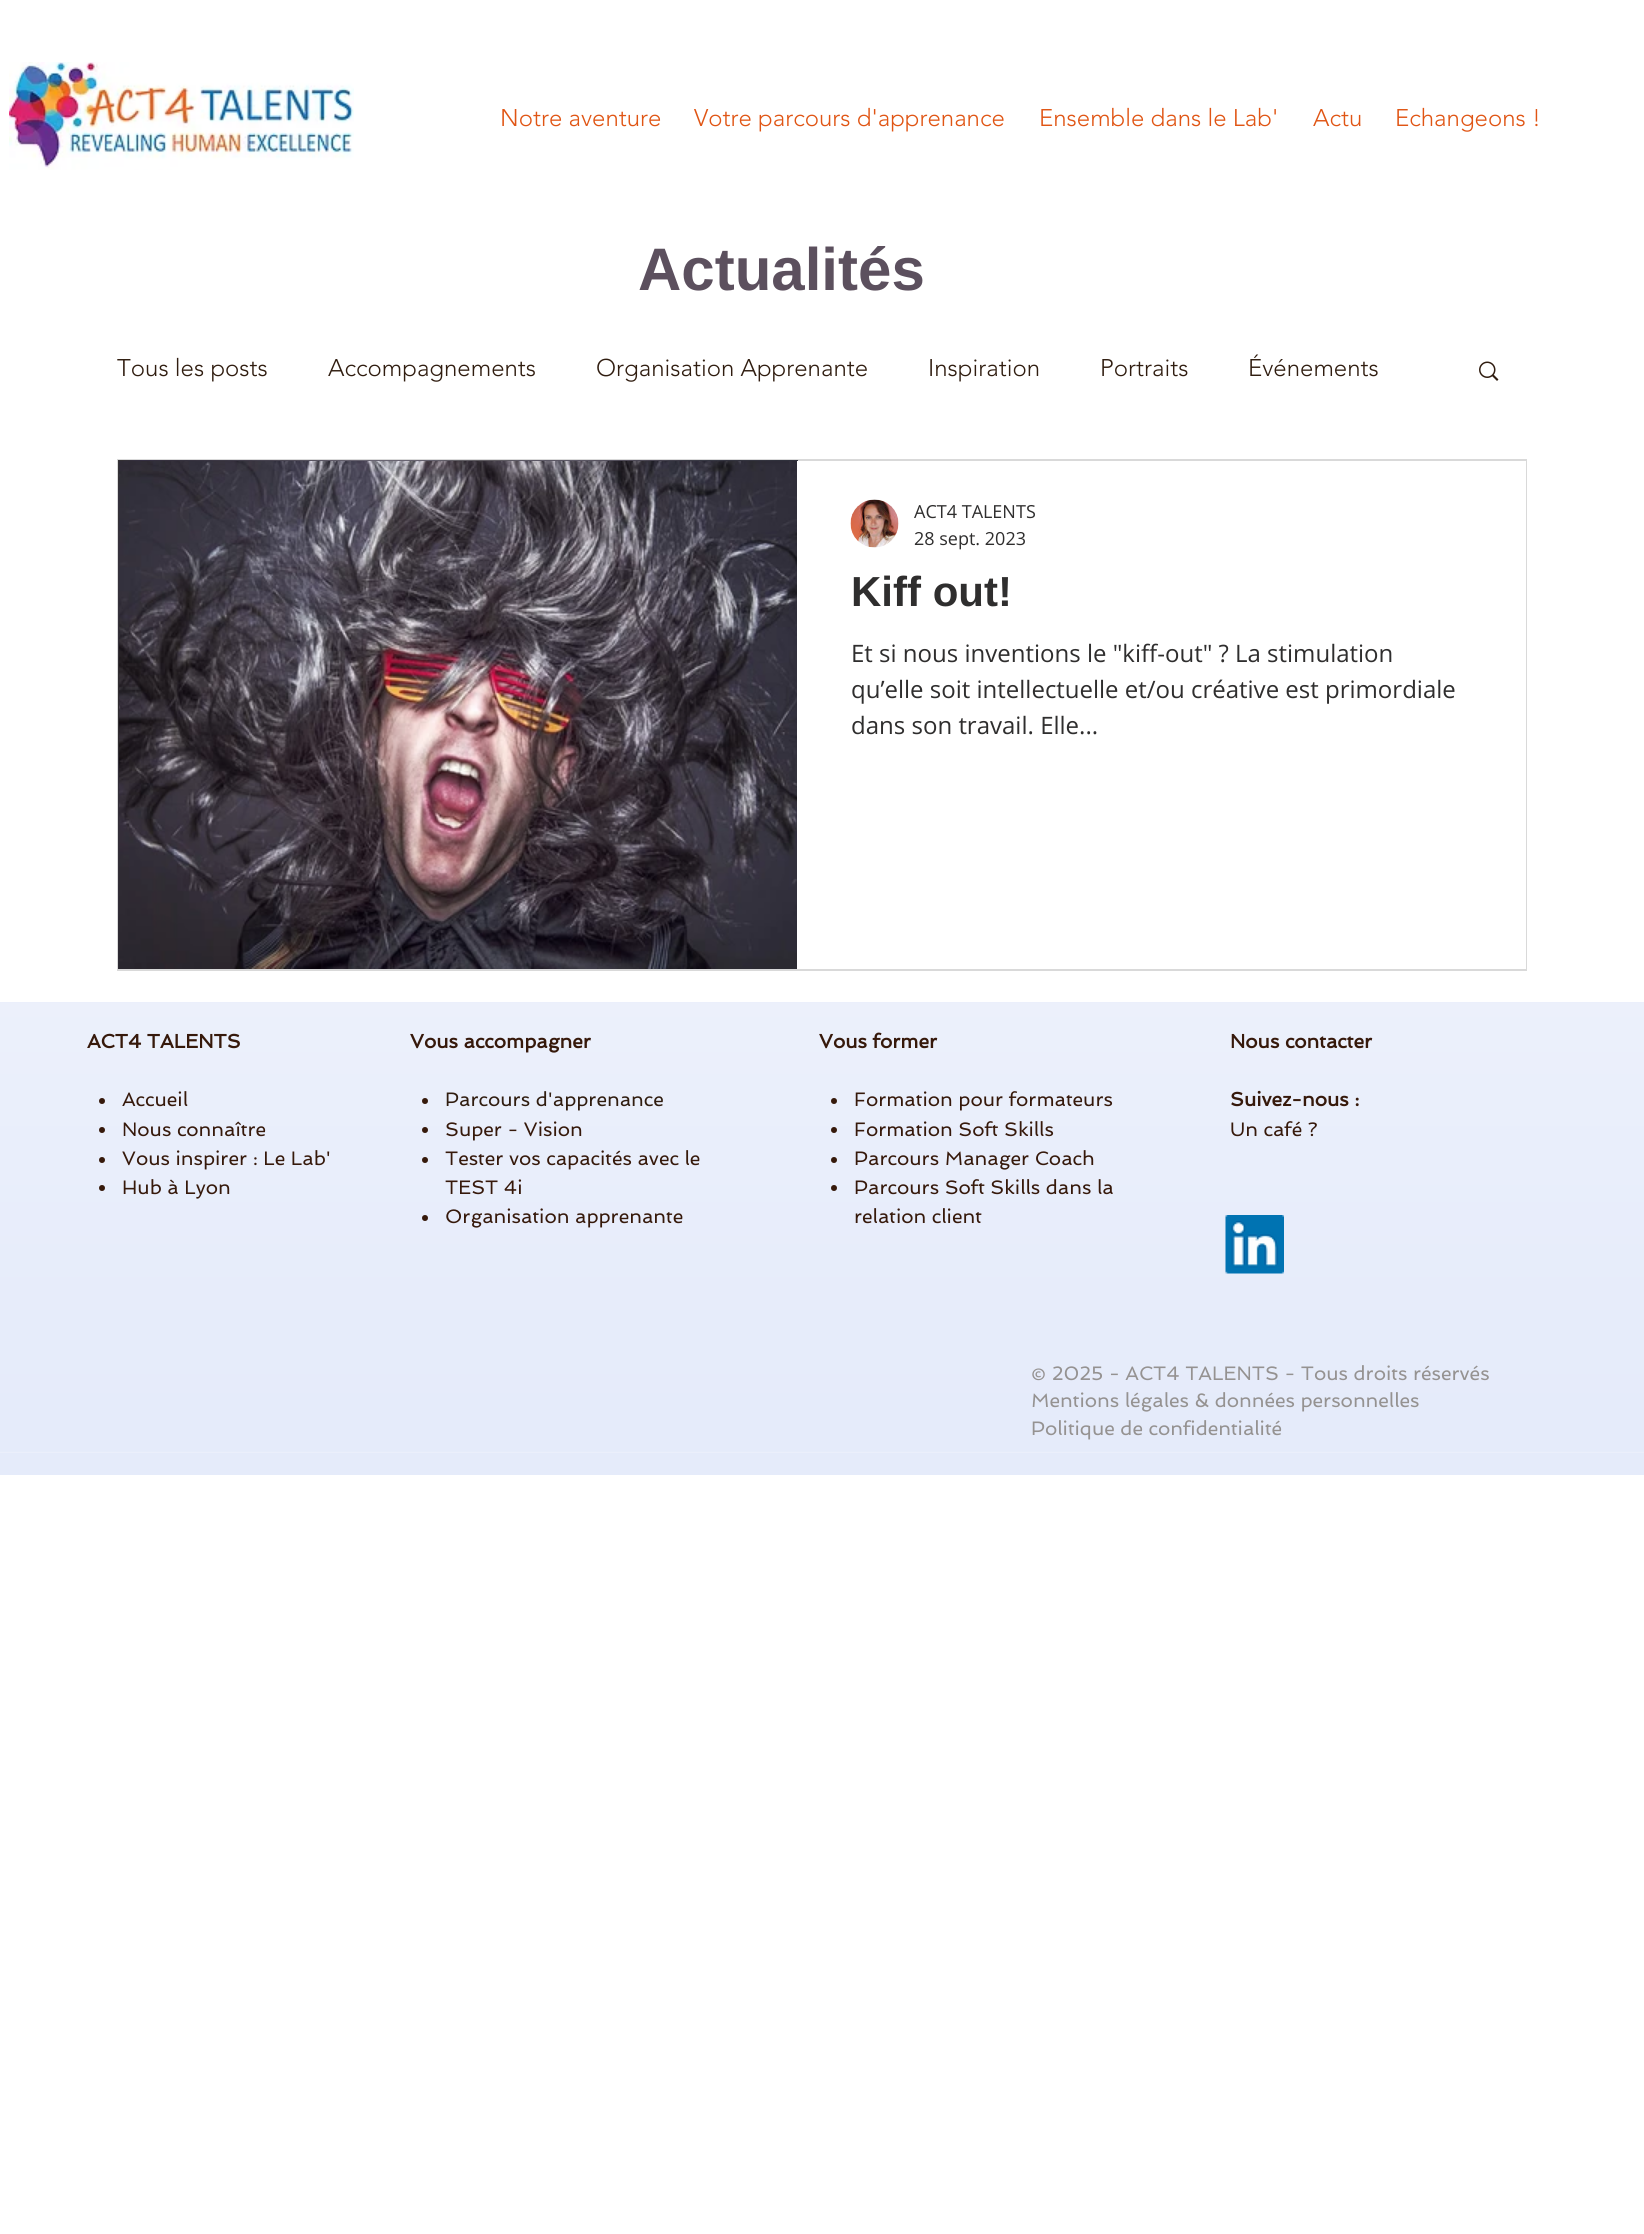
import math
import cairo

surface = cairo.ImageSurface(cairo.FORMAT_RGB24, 1644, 2234)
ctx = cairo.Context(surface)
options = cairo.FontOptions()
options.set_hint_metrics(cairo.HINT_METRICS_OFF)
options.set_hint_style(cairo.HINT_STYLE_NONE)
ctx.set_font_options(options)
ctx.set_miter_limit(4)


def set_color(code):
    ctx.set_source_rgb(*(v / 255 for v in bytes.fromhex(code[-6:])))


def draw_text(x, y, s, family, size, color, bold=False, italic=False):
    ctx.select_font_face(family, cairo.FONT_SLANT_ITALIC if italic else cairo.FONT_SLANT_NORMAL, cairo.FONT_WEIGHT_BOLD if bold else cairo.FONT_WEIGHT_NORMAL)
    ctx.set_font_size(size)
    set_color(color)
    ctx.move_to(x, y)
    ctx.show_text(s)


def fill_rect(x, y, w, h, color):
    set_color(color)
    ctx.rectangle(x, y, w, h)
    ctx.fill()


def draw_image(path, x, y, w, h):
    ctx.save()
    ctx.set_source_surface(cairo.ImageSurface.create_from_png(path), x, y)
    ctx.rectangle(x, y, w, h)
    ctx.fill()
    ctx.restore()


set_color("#ffffff")
ctx.paint()
draw_image("assets/img1.png", 9, 62, 345, 108)
draw_text(500, 126, "Notre aventure", "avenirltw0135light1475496 Light", 24, "#e05514")
draw_text(694, 126, "Votre parcours d'apprenance", "avenirltw0135light1475496 Light", 24, "#e05514")
draw_text(1039, 126, "Ensemble dans le Lab'", "avenirltw0135light1475496 Light", 24, "#e05514")
draw_text(1313, 126, "Actu", "avenirltw0135light1475496 Light", 24, "#e05514")
draw_text(1395, 126, "Echangeons !", "avenirltw0135light1475496 Light", 24, "#e05514")
draw_text(638, 290, "Actualités", "Liberation Sans", 60, "#5c505e", bold=True)
draw_text(117, 376, "Tous les posts", "avenirltw0135light1475496 Light", 24, "#301d10")
draw_text(328, 376, "Accompagnements", "avenirltw0135light1475496 Light", 24, "#301d10")
draw_text(596, 376, "Organisation Apprenante", "avenirltw0135light1475496 Light", 24, "#301d10")
draw_text(928, 376, "Inspiration", "avenirltw0135light1475496 Light", 24, "#301d10")
draw_text(1100, 376, "Portraits", "avenirltw0135light1475496 Light", 24, "#301d10")
draw_text(1248, 376, "Événements", "avenirltw0135light1475496 Light", 24, "#301d10")
draw_image("assets/img2.png", 1479, 361, 20, 20)
ctx.rectangle(118, 460, 1408, 510)
set_color("#d9d9d9")
ctx.stroke()
draw_image("assets/img3.png", 118, 460, 680, 509)
draw_image("assets/img4.png", 119, 461, 678, 508)
fill_rect(797, 461, 729, 508, "#ffffff")
draw_image("assets/img5.png", 850, 499, 49, 49)
draw_text(914, 518, "ACT4 TALENTS", "Open Sans", 18, "#2f2e2e")
draw_text(914, 545, "28 sept. 2023", "Open Sans", 18, "#2f2e2e")
draw_text(851, 606, "Kiff out!", "Liberation Sans", 42, "#2f2e2e", bold=True)
draw_text(851, 662, "Et si nous inventions le \"kiff-out\" ? La stimulation", "Open Sans", 24, "#2f2e2e")
draw_text(851, 698, "qu’elle soit intellectuelle et/ou créative est primordiale", "Open Sans", 24, "#2f2e2e")
draw_text(851, 734, "dans son travail. Elle...", "Open Sans", 24, "#2f2e2e")
fill_rect(0, 1002, 1644, 473, "#e5ebfa")
draw_image("assets/img6.png", 0, 1002, 1644, 451)
draw_text(87, 1048, "ACT4 TALENTS", "Spinnaker", 19.5, "#36190b", bold=True)
ctx.new_path()
ctx.arc(102, 1101, 3, 0, 2 * math.pi)
ctx.fill()
draw_text(122, 1106, "Accueil", "Spinnaker", 19.5, "#36190b")
ctx.new_path()
ctx.arc(102, 1130, 3, 0, 2 * math.pi)
ctx.fill()
draw_text(122, 1136, "Nous connaître", "Spinnaker", 19.5, "#36190b")
ctx.new_path()
ctx.arc(102, 1160, 3, 0, 2 * math.pi)
ctx.fill()
draw_text(122, 1165, "Vous inspirer : Le Lab'", "Spinnaker", 19.5, "#36190b")
ctx.new_path()
ctx.arc(102, 1188, 3, 0, 2 * math.pi)
ctx.fill()
draw_text(122, 1194, "Hub à Lyon", "Spinnaker", 19.5, "#36190b")
draw_text(410, 1048, "Vous accompagner", "Spinnaker", 19.5, "#36190b", bold=True)
ctx.new_path()
ctx.arc(425, 1101, 3, 0, 2 * math.pi)
ctx.fill()
draw_text(445, 1106, "Parcours d'apprenance", "Spinnaker", 19.5, "#301d10")
set_color("#36190b")
ctx.new_path()
ctx.arc(425, 1130, 3, 0, 2 * math.pi)
ctx.fill()
draw_text(445, 1136, "Super - Vision", "Spinnaker", 19.5, "#36190b")
ctx.new_path()
ctx.arc(425, 1160, 3, 0, 2 * math.pi)
ctx.fill()
draw_text(445, 1165, "Tester vos capacités avec le", "Spinnaker", 19.5, "#36190b")
draw_text(445, 1194, "TEST 4i", "Spinnaker", 19.5, "#36190b")
ctx.new_path()
ctx.arc(425, 1218, 3, 0, 2 * math.pi)
ctx.fill()
draw_text(445, 1223, "Organisation apprenante", "Spinnaker", 19.5, "#36190b")
draw_text(819, 1048, "Vous former", "Spinnaker", 19.5, "#36190b", bold=True)
ctx.new_path()
ctx.arc(834, 1101, 3, 0, 2 * math.pi)
ctx.fill()
draw_text(854, 1106, "Formation pour formateurs", "Spinnaker", 19.5, "#36190b")
ctx.new_path()
ctx.arc(834, 1130, 3, 0, 2 * math.pi)
ctx.fill()
draw_text(854, 1136, "Formation Soft Skills", "Spinnaker", 19.5, "#36190b")
ctx.new_path()
ctx.arc(834, 1160, 3, 0, 2 * math.pi)
ctx.fill()
draw_text(854, 1165, "Parcours Manager Coach", "Spinnaker", 19.5, "#36190b")
ctx.new_path()
ctx.arc(834, 1188, 3, 0, 2 * math.pi)
ctx.fill()
draw_text(854, 1194, "Parcours Soft Skills dans la", "Spinnaker", 19.5, "#36190b")
draw_text(854, 1223, "relation client", "Spinnaker", 19.5, "#36190b")
draw_text(1230, 1048, "Nous contacter", "Spinnaker", 19.5, "#36190b", bold=True)
draw_text(1230, 1106, "Suivez-nous :", "Spinnaker", 19.5, "#36190b", bold=True)
draw_text(1230, 1136, "Un café ?", "Spinnaker", 19.5, "#36190b")
draw_image("assets/img7.png", 1225, 1215, 59, 59)
draw_text(1031, 1380, "© 2025 - ACT4 TALENTS - Tous droits réservés", "Spinnaker", 19.5, "#959291")
draw_text(1031, 1407, "Mentions légales & données personnelles", "Spinnaker", 19.5, "#959291")
draw_text(1031, 1435, "Politique de confidentialité", "Spinnaker", 19.5, "#959291")
surface.write_to_png("output.png")
